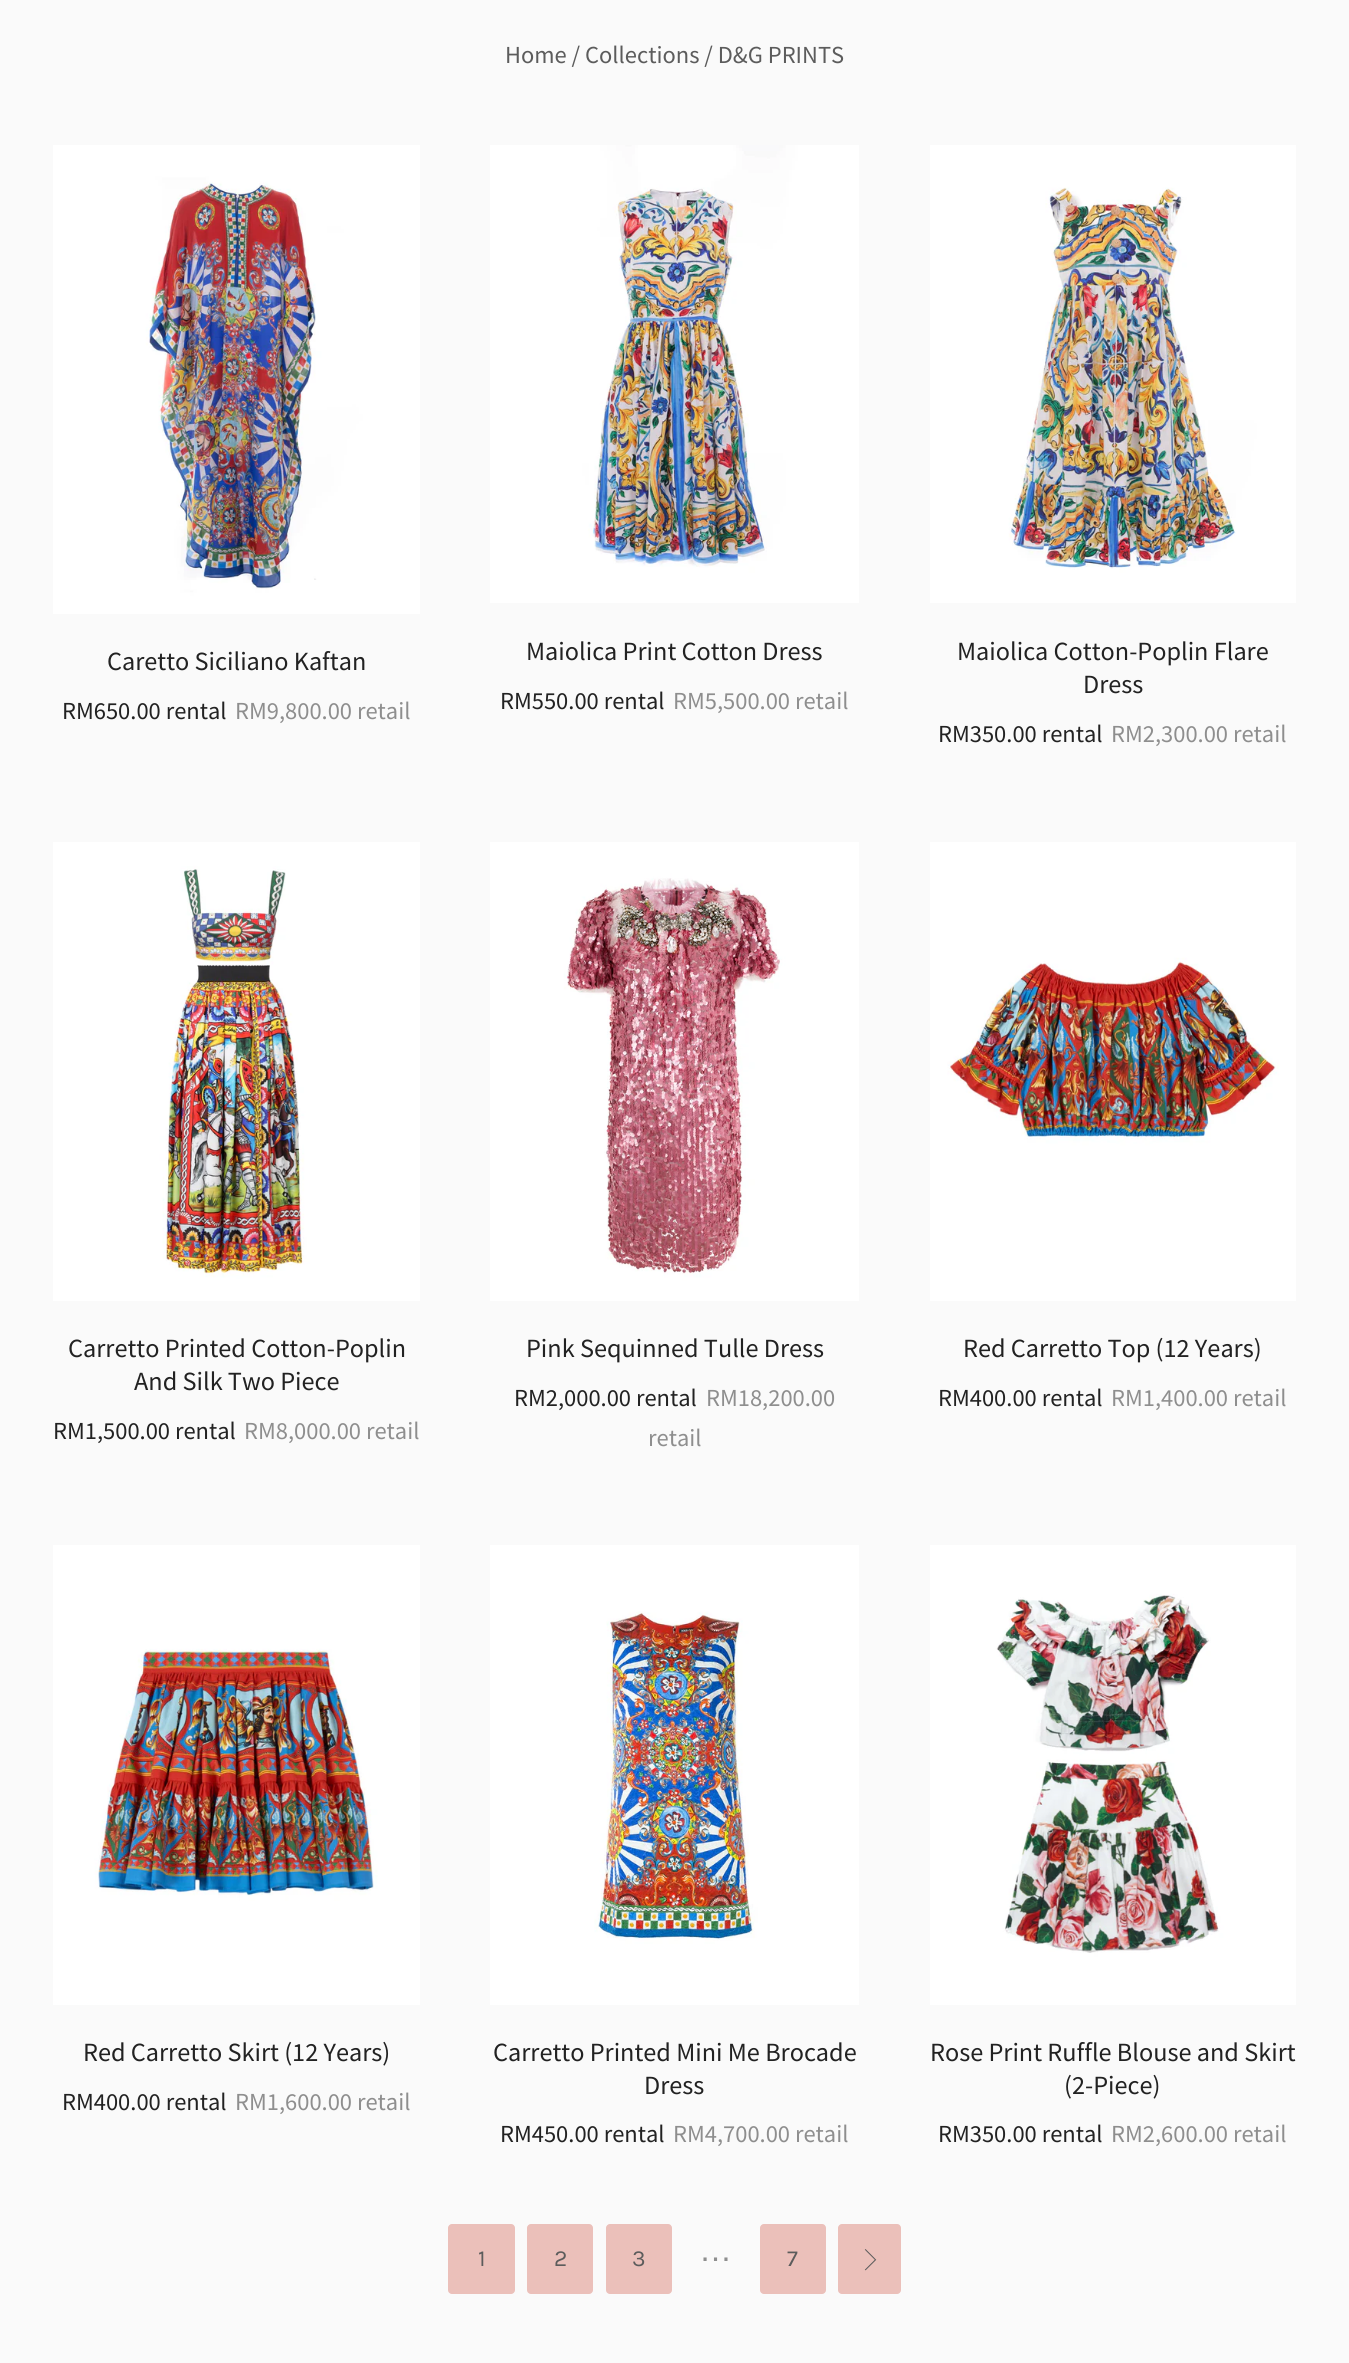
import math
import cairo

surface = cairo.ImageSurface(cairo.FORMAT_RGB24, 1349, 2363)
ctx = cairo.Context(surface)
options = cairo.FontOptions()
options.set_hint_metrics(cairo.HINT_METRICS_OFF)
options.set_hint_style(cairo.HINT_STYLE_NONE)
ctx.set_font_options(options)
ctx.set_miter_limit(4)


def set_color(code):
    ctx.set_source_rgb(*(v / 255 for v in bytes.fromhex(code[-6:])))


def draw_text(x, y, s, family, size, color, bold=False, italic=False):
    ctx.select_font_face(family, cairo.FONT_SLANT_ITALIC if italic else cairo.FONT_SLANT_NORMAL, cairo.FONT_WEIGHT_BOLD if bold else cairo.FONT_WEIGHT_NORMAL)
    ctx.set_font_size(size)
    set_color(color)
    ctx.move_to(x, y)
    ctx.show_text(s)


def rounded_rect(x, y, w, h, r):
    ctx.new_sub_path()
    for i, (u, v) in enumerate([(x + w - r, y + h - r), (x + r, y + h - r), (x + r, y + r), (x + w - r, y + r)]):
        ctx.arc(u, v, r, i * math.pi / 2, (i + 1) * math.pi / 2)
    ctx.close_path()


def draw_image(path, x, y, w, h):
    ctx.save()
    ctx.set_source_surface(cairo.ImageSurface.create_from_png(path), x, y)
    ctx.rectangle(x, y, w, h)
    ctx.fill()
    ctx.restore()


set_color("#fafafa")
ctx.paint()
draw_text(505, 63, "Home / Collections / D&G PRINTS", "Source Sans Pro", 24.5, "#5c5c5c")
draw_image("assets/img1.png", 53, 145, 367, 469)
draw_text(107, 670, "Caretto Siciliano Kaftan", "Source Sans Pro", 26.25, "#222222")
draw_text(62, 719, "RM650.00 rental", "Source Sans Pro", 24.5, "#222222")
draw_text(235, 719, "RM9,800.00 retail", "Source Sans Pro", 24.5, "#8e8e8e")
draw_image("assets/img2.png", 490, 145, 369, 458)
draw_text(526, 660, "Maiolica Print Cotton Dress", "Source Sans Pro", 26.25, "#222222")
draw_text(500, 709, "RM550.00 rental", "Source Sans Pro", 24.5, "#222222")
draw_text(673, 709, "RM5,500.00 retail", "Source Sans Pro", 24.5, "#8e8e8e")
draw_image("assets/img3.png", 930, 145, 366, 458)
draw_text(957, 660, "Maiolica Cotton-Poplin Flare", "Source Sans Pro", 26.25, "#222222")
draw_text(1083, 693, "Dress", "Source Sans Pro", 26.25, "#222222")
draw_text(938, 742, "RM350.00 rental", "Source Sans Pro", 24.5, "#222222")
draw_text(1111, 742, "RM2,300.00 retail", "Source Sans Pro", 24.5, "#8e8e8e")
draw_image("assets/img4.png", 53, 842, 367, 459)
draw_text(68, 1357, "Carretto Printed Cotton-Poplin", "Source Sans Pro", 26.25, "#222222")
draw_text(134, 1390, "And Silk Two Piece", "Source Sans Pro", 26.25, "#222222")
draw_text(53, 1439, "RM1,500.00 rental", "Source Sans Pro", 24.5, "#222222")
draw_text(244, 1439, "RM8,000.00 retail", "Source Sans Pro", 24.5, "#8e8e8e")
draw_image("assets/img5.png", 490, 842, 369, 459)
draw_text(526, 1357, "Pink Sequinned Tulle Dress", "Source Sans Pro", 26.25, "#222222")
draw_text(514, 1406, "RM2,000.00 rental", "Source Sans Pro", 24.5, "#222222")
draw_text(706, 1406, "RM18,200.00", "Source Sans Pro", 24.5, "#8e8e8e")
draw_text(648, 1446, "retail", "Source Sans Pro", 24.5, "#8e8e8e")
draw_image("assets/img6.png", 930, 842, 366, 459)
draw_text(963, 1357, "Red Carretto Top (12 Years)", "Source Sans Pro", 26.25, "#222222")
draw_text(938, 1406, "RM400.00 rental", "Source Sans Pro", 24.5, "#222222")
draw_text(1111, 1406, "RM1,400.00 retail", "Source Sans Pro", 24.5, "#8e8e8e")
draw_image("assets/img7.png", 53, 1545, 367, 460)
draw_text(83, 2061, "Red Carretto Skirt (12 Years)", "Source Sans Pro", 26.25, "#222222")
draw_text(62, 2110, "RM400.00 rental", "Source Sans Pro", 24.5, "#222222")
draw_text(235, 2110, "RM1,600.00 retail", "Source Sans Pro", 24.5, "#8e8e8e")
draw_image("assets/img8.png", 490, 1545, 369, 460)
draw_text(493, 2061, "Carretto Printed Mini Me Brocade", "Source Sans Pro", 26.25, "#222222")
draw_text(644, 2094, "Dress", "Source Sans Pro", 26.25, "#222222")
draw_text(500, 2142, "RM450.00 rental", "Source Sans Pro", 24.5, "#222222")
draw_text(673, 2142, "RM4,700.00 retail", "Source Sans Pro", 24.5, "#8e8e8e")
draw_image("assets/img9.png", 930, 1545, 366, 460)
draw_text(930, 2061, "Rose Print Ruffle Blouse and Skirt", "Source Sans Pro", 26.25, "#222222")
draw_text(1064, 2094, "(2-Piece)", "Source Sans Pro", 26.25, "#222222")
draw_text(938, 2142, "RM350.00 rental", "Source Sans Pro", 24.5, "#222222")
draw_text(1111, 2142, "RM2,600.00 retail", "Source Sans Pro", 24.5, "#8e8e8e")
set_color("#ebc0ba")
rounded_rect(448, 2224, 67, 70, 4)
ctx.fill()
draw_text(478, 2266, "1", "Karla", 23, "#5c5c5c")
set_color("#ebc0ba")
rounded_rect(527, 2224, 66, 70, 4)
ctx.fill()
draw_text(554, 2266, "2", "Karla", 23, "#5c5c5c")
set_color("#ebc0ba")
rounded_rect(606, 2224, 66, 70, 4)
ctx.fill()
draw_text(632, 2266, "3", "Karla", 23, "#5c5c5c")
draw_text(699, 2261, "…", "Liberation Sans", 33, "#8e8e8e")
set_color("#ebc0ba")
rounded_rect(760, 2224, 66, 70, 4)
ctx.fill()
draw_text(787, 2266, "7", "Karla", 23, "#5c5c5c")
set_color("#ebc0ba")
rounded_rect(838, 2224, 63, 70, 4)
ctx.fill()
draw_image("assets/img10.png", 864, 2249, 13, 22)
surface.write_to_png("output.png")
